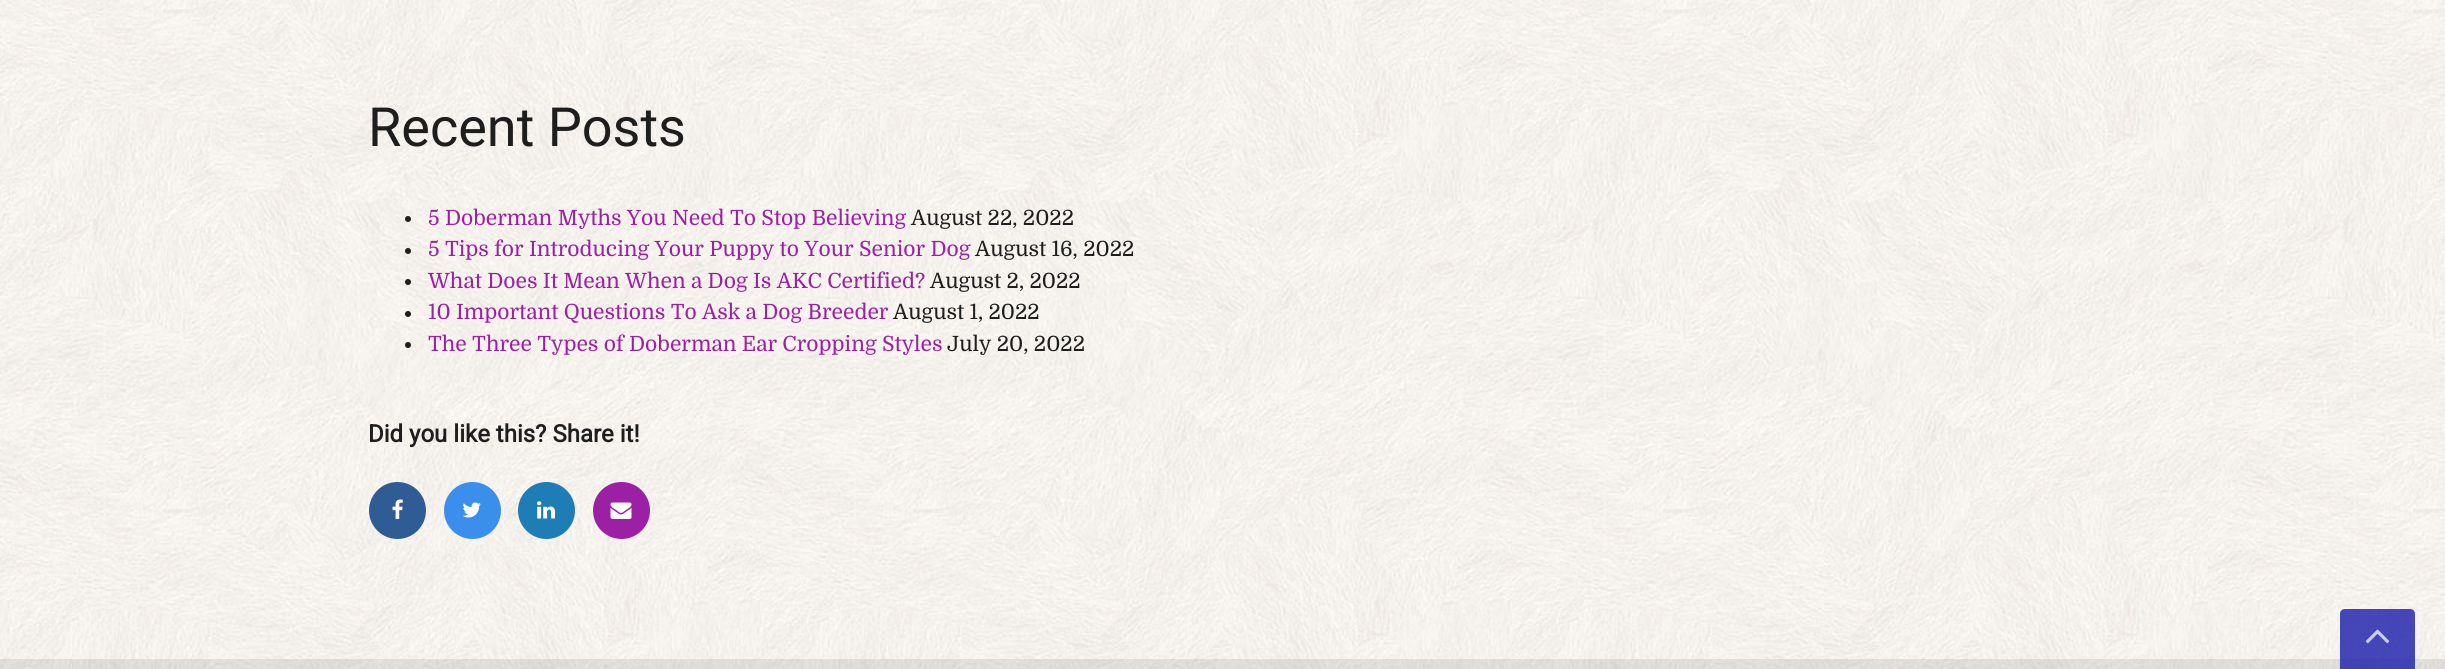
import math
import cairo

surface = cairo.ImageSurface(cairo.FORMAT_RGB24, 2445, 669)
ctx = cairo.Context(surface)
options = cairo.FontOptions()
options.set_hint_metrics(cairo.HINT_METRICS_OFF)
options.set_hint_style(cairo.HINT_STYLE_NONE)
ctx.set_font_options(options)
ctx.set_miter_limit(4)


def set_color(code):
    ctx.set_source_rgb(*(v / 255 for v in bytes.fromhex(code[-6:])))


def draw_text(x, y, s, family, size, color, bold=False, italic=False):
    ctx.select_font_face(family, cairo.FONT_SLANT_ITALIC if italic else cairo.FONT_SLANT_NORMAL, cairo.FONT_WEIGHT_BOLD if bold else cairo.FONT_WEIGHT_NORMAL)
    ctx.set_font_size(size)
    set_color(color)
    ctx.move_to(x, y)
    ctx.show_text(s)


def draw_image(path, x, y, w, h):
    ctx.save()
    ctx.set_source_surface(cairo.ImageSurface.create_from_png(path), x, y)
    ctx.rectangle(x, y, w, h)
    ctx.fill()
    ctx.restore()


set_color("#ffffff")
ctx.paint()
draw_image("assets/img1.png", 0, 0, 2445, 669)
draw_text(368, 146, "Recent Posts", "Roboto", 54, "#1e1e1e")
ctx.new_path()
ctx.arc(408, 219, 3, 0, 2 * math.pi)
ctx.fill()
draw_text(428, 225, "5 Doberman Myths You Need To Stop Believing", "Domine", 21, "#9c20a3")
draw_text(911, 225, "August 22, 2022", "Domine", 21, "#1e1e1e")
ctx.new_path()
ctx.arc(408, 251, 3, 0, 2 * math.pi)
ctx.fill()
draw_text(428, 256, "5 Tips for Introducing Your Puppy to Your Senior Dog", "Domine", 21, "#9c20a3")
draw_text(975, 256, "August 16, 2022", "Domine", 21, "#1e1e1e")
ctx.new_path()
ctx.arc(408, 282, 3, 0, 2 * math.pi)
ctx.fill()
draw_text(428, 288, "What Does It Mean When a Dog Is AKC Certified?", "Domine", 21, "#9c20a3")
draw_text(930, 288, "August 2, 2022", "Domine", 21, "#1e1e1e")
ctx.new_path()
ctx.arc(408, 314, 3, 0, 2 * math.pi)
ctx.fill()
draw_text(428, 319, "10 Important Questions To Ask a Dog Breeder", "Domine", 21, "#9c20a3")
draw_text(893, 319, "August 1, 2022", "Domine", 21, "#1e1e1e")
ctx.new_path()
ctx.arc(408, 345, 3, 0, 2 * math.pi)
ctx.fill()
draw_text(428, 351, "The Three Types of Doberman Ear Cropping Styles", "Domine", 21, "#9c20a3")
draw_text(947, 351, "July 20, 2022", "Domine", 21, "#1e1e1e")
draw_text(368, 442, "Did you like this? Share it!", "Roboto", 24, "#1e1e1e", bold=True)
set_color("#2f5c95")
ctx.new_path()
ctx.arc(397.5, 510.5, 28.5, 0, 2 * math.pi)
ctx.fill()
draw_image("assets/img2.png", 392, 499, 11, 20)
set_color("#398feb")
ctx.arc(472.5, 510.5, 28.5, 0, 2 * math.pi)
ctx.fill()
draw_image("assets/img3.png", 462, 502, 19, 16)
set_color("#1e7db5")
ctx.arc(546.5, 510.5, 28.5, 0, 2 * math.pi)
ctx.fill()
draw_image("assets/img4.png", 537, 501, 18, 18)
set_color("#9c20a3")
ctx.arc(621.5, 510.5, 28.5, 0, 2 * math.pi)
ctx.fill()
draw_image("assets/img5.png", 610, 502, 22, 17)
ctx.set_source_rgba(0.118, 0.118, 0.118, 0.1)
ctx.rectangle(0, 659, 2445, 10)
ctx.fill()
ctx.set_source_rgba(0.149, 0.157, 0.686, 0.85)
ctx.new_path()
ctx.move_to(2345, 609)
ctx.line_to(2410, 609)
ctx.curve_to(2413, 609, 2415, 611, 2415, 614)
ctx.line_to(2415, 669)
ctx.line_to(2340, 669)
ctx.line_to(2340, 614)
ctx.curve_to(2340, 611, 2342, 609, 2345, 609)
ctx.close_path()
ctx.fill()
draw_image("assets/img6.png", 2365, 629, 25, 15)
surface.write_to_png("output.png")
